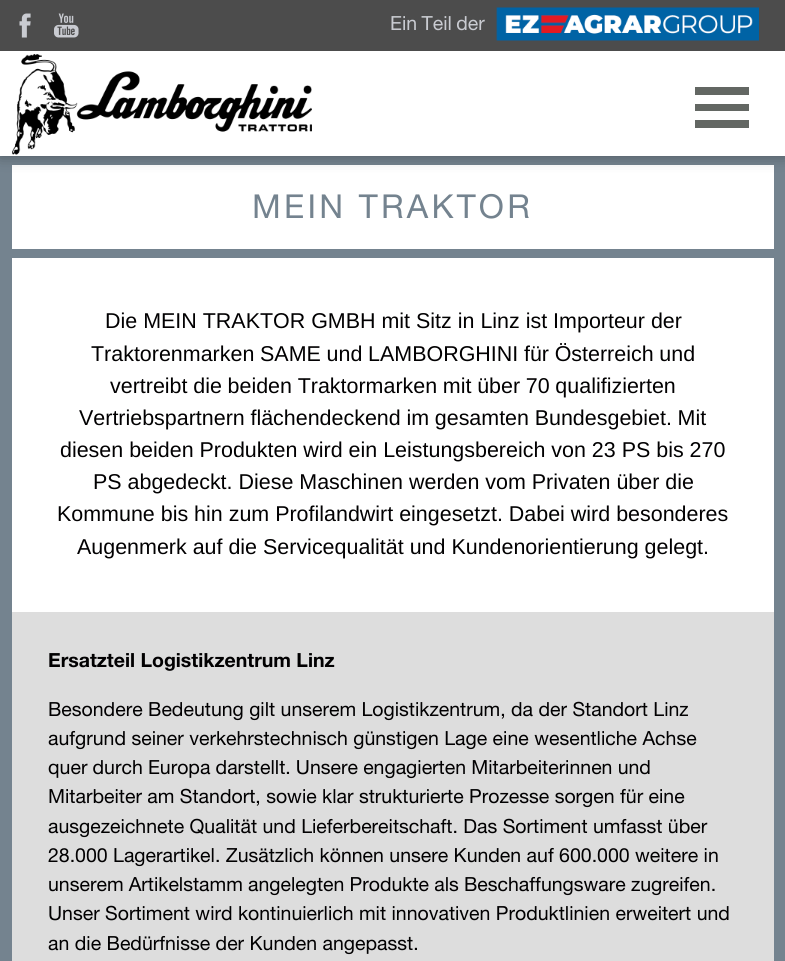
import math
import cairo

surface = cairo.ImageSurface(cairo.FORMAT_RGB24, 785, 961)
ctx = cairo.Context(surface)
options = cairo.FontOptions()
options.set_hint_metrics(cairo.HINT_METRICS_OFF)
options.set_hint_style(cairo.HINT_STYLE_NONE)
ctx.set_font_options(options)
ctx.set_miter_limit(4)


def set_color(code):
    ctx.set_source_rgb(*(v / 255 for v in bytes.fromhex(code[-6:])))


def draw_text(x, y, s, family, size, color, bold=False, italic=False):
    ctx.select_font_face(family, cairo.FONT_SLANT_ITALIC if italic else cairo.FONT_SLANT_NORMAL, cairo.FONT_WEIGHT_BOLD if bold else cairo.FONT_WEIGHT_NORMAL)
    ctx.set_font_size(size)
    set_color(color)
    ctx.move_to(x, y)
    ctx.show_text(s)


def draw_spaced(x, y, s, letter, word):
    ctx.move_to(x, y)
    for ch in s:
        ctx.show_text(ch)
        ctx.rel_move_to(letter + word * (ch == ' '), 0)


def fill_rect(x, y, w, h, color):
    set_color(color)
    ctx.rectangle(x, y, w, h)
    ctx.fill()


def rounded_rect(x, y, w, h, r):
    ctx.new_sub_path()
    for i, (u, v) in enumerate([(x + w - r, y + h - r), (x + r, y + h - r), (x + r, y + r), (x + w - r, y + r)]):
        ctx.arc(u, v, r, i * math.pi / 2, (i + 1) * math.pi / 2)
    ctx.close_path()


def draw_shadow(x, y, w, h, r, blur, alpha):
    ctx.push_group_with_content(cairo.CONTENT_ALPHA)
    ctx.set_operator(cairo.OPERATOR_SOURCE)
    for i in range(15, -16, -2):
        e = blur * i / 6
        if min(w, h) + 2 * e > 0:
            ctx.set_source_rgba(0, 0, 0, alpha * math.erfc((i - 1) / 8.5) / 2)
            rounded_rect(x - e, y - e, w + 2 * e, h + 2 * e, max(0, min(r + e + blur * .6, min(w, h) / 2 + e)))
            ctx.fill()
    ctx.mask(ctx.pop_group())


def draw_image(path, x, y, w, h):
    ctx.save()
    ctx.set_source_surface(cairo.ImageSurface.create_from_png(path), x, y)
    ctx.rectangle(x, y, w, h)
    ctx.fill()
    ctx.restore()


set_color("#74838f")
ctx.paint()
fill_rect(12, 165, 762, 84, "#ffffff")
set_color("#000000")
draw_shadow(0, 51, 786, 105, 0, 7.5, 0.35)
fill_rect(0, 0, 785, 51, "#4c4c4c")
draw_image("assets/img1.png", 19, 13, 12, 25)
draw_image("assets/img2.png", 54, 13, 25, 25)
ctx.select_font_face("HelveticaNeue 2")
ctx.set_font_size(19.5)
set_color("#c9cbd1")
draw_spaced(390, 30, "Ein Teil der", 0, -1)
draw_image("assets/img3.png", 496, 7, 263, 34)
fill_rect(0, 51, 785, 105, "#ffffff")
draw_image("assets/img4.png", 12, 54, 300, 101)
fill_rect(695, 120, 54, 8, "#636763")
fill_rect(695, 104, 54, 7, "#636763")
fill_rect(695, 87, 54, 8, "#636763")
ctx.set_font_size(33)
set_color("#74838f")
draw_spaced(252, 218, "MEIN TRAKTOR", 3.25, 0)
fill_rect(12, 258, 762, 354, "#ffffff")
draw_text(105, 328, "Die MEIN TRAKTOR GMBH mit Sitz in Linz ist Importeur der", "Liberation Sans", 21.45, "#010001")
draw_spaced(91, 361, "Traktorenmarken SAME und LAMBORGHINI für Österreich und", 0, -0.25)
draw_spaced(110, 393, "vertreibt die beiden Traktormarken mit über 70 qualifizierten", 0, -0.25)
draw_spaced(79, 425, "Vertriebspartnern flächendeckend im gesamten Bundesgebiet. Mit", 0, -0.25)
draw_text(60, 457, "diesen beiden Produkten wird ein Leistungsbereich von 23 PS bis 270", "Liberation Sans", 21.45, "#010001")
draw_text(93, 489, "PS abgedeckt. Diese Maschinen werden vom Privaten über die", "Liberation Sans", 21.45, "#010001")
draw_text(57, 521, "Kommune bis hin zum Profilandwirt eingesetzt. Dabei wird besonderes", "Liberation Sans", 21.45, "#010001")
draw_text(77, 554, "Augenmerk auf die Servicequalität und Kundenorientierung gelegt.", "Liberation Sans", 21.45, "#010001")
fill_rect(12, 612, 762, 349, "#dddddd")
draw_text(48, 667, "Ersatzteil Logistikzentrum Linz", "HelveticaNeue", 19.5, "#010001")
draw_text(48, 716, "Besondere Bedeutung gilt unserem Logistikzentrum, da der Standort Linz", "HelveticaNeue 2", 19.5, "#010001")
draw_text(48, 745, "aufgrund seiner verkehrstechnisch günstigen Lage eine wesentliche Achse", "HelveticaNeue 2", 19.5, "#010001")
draw_spaced(48, 774, "quer durch Europa darstellt. Unsere engagierten Mitarbeiterinnen und", 0, -0.25)
draw_text(48, 803, "Mitarbeiter am Standort, sowie klar strukturierte Prozesse sorgen für eine", "HelveticaNeue 2", 19.5, "#010001")
draw_text(48, 833, "ausgezeichnete Qualität und Lieferbereitschaft. Das Sortiment umfasst über", "HelveticaNeue 2", 19.5, "#010001")
draw_text(48, 862, "28.000 Lagerartikel. Zusätzlich können unsere Kunden auf 600.000 weitere in", "HelveticaNeue 2", 19.5, "#010001")
draw_spaced(48, 891, "unserem Artikelstamm angelegten Produkte als Beschaffungsware zugreifen.", 0, -0.25)
draw_text(48, 920, "Unser Sortiment wird kontinuierlich mit innovativen Produktlinien erweitert und", "HelveticaNeue 2", 19.5, "#010001")
draw_text(48, 950, "an die Bedürfnisse der Kunden angepasst.", "HelveticaNeue 2", 19.5, "#010001")
surface.write_to_png("output.png")
